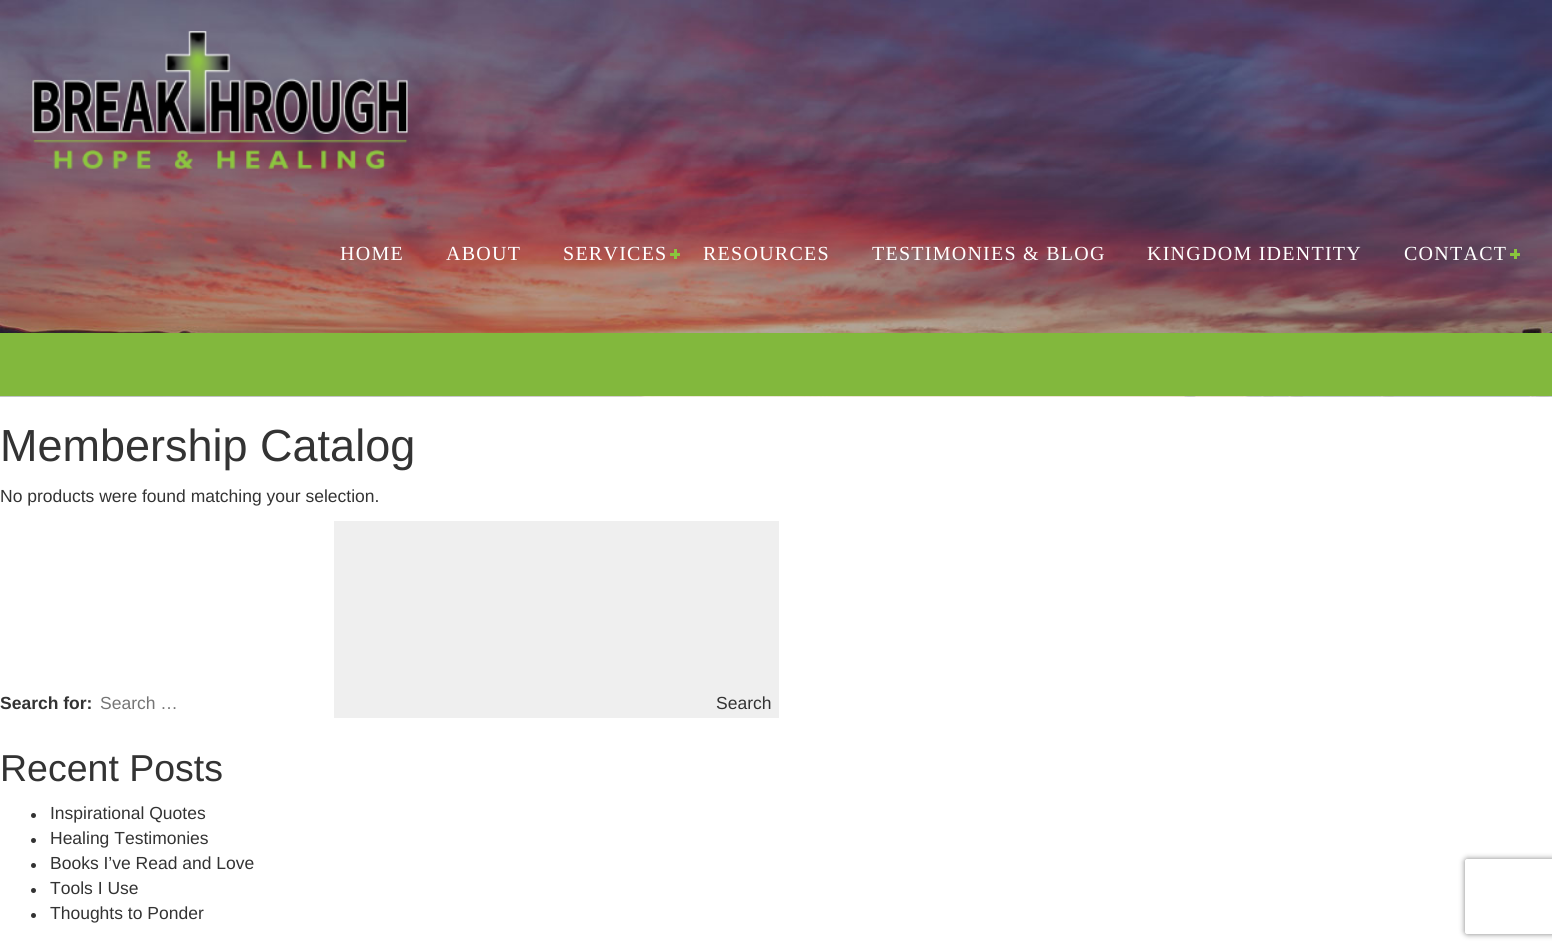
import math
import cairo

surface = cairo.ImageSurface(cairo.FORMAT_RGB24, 1552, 951)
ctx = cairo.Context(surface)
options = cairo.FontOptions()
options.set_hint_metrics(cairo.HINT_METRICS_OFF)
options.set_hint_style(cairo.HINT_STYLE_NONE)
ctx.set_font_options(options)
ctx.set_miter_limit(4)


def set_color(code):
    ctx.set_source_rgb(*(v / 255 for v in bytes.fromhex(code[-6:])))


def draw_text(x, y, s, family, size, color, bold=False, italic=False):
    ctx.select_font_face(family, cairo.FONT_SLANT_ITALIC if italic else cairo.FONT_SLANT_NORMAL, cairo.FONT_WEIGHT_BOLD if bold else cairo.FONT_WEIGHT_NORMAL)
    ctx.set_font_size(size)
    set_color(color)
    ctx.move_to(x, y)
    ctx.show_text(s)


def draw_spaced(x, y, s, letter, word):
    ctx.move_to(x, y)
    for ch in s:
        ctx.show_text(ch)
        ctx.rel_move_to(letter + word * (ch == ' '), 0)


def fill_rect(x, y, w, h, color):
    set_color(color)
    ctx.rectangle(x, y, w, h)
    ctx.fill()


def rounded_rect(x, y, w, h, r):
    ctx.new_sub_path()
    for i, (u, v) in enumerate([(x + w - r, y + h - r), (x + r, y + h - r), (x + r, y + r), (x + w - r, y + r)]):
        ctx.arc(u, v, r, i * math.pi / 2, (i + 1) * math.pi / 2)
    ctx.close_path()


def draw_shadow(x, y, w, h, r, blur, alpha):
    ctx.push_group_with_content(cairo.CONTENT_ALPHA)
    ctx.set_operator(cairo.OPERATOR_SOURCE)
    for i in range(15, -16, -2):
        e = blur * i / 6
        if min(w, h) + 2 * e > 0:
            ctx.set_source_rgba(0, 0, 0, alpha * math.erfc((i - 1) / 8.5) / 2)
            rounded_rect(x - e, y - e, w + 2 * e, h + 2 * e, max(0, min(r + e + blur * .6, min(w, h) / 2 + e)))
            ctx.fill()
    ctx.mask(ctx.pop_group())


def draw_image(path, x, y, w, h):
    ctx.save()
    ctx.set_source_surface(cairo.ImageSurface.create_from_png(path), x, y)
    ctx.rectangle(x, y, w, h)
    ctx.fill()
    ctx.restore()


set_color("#ffffff")
ctx.paint()
draw_image("assets/img1.png", 0, 0, 1552, 397)
draw_image("assets/img2.png", 32, 31, 376, 138)
ctx.select_font_face("Liberation Serif")
ctx.set_font_size(20)
set_color("#ffffff")
draw_spaced(340, 260, "HOME", 1.25, 0)
draw_spaced(446, 260, "ABOUT", 1.25, 0)
draw_spaced(563, 260, "SERVICES", 1.25, 0)
fill_rect(674, 249, 3, 10, "#8ac63d")
fill_rect(670, 253, 10, 3, "#8ac63d")
set_color("#ffffff")
draw_spaced(703, 260, "RESOURCES", 1.25, 0)
draw_spaced(872, 260, "TESTIMONIES & BLOG", 1.25, 0)
draw_spaced(1147, 260, "KINGDOM IDENTITY", 1.25, 0)
draw_spaced(1404, 260, "CONTACT", 1.25, 0)
fill_rect(1514, 249, 3, 10, "#8ac63d")
fill_rect(1510, 253, 10, 3, "#8ac63d")
fill_rect(0, 333, 1552, 63, "#82b83d")
draw_text(0, 461, "Membership Catalog", "Liberation Sans", 45, "#333333")
draw_text(0, 502, "No products were found matching your selection.", "Liberation Sans", 17.5, "#333333")
draw_text(0, 709, "Search for:", "Liberation Sans", 17.5, "#333333", bold=True)
draw_text(100, 709, "Search …", "Liberation Sans", 17.5, "#757575")
fill_rect(334, 521, 445, 197, "#efefef")
draw_text(716, 709, "Search", "Liberation Sans", 17.5, "#333333")
draw_text(0, 781, "Recent Posts", "Liberation Sans", 37.5, "#333333")
ctx.new_path()
ctx.arc(33.5, 815.5, 2.5, 0, 2 * math.pi)
ctx.fill()
draw_text(50, 819, "Inspirational Quotes", "Liberation Sans", 17.5, "#333333")
ctx.new_path()
ctx.arc(33.5, 840.5, 2.5, 0, 2 * math.pi)
ctx.fill()
draw_text(50, 844, "Healing Testimonies", "Liberation Sans", 17.5, "#333333")
ctx.new_path()
ctx.arc(33.5, 865.5, 2.5, 0, 2 * math.pi)
ctx.fill()
draw_text(50, 869, "Books I’ve Read and Love", "Liberation Sans", 17.5, "#333333")
ctx.new_path()
ctx.arc(33.5, 890.5, 2.5, 0, 2 * math.pi)
ctx.fill()
draw_text(50, 894, "Tools I Use", "Liberation Sans", 17.5, "#333333")
ctx.new_path()
ctx.arc(33.5, 915.5, 2.5, 0, 2 * math.pi)
ctx.fill()
draw_text(50, 919, "Thoughts to Ponder", "Liberation Sans", 17.5, "#333333")
ctx.save()
ctx.set_fill_rule(cairo.FILL_RULE_EVEN_ODD)
ctx.new_path()
ctx.move_to(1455, 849)
ctx.line_to(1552, 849)
ctx.line_to(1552, 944)
ctx.line_to(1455, 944)
ctx.close_path()
ctx.move_to(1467.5, 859)
ctx.line_to(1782.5, 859)
ctx.curve_to(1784, 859, 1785, 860, 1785, 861.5)
ctx.line_to(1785, 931.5)
ctx.curve_to(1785, 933, 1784, 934, 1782.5, 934)
ctx.line_to(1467.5, 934)
ctx.curve_to(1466, 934, 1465, 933, 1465, 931.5)
ctx.line_to(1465, 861.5)
ctx.curve_to(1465, 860, 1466, 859, 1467.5, 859)
ctx.close_path()
ctx.clip()
set_color("#808080")
draw_shadow(1465, 859, 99, 75, 2.5, 3, 1)
ctx.restore()
surface.write_to_png("output.png")
